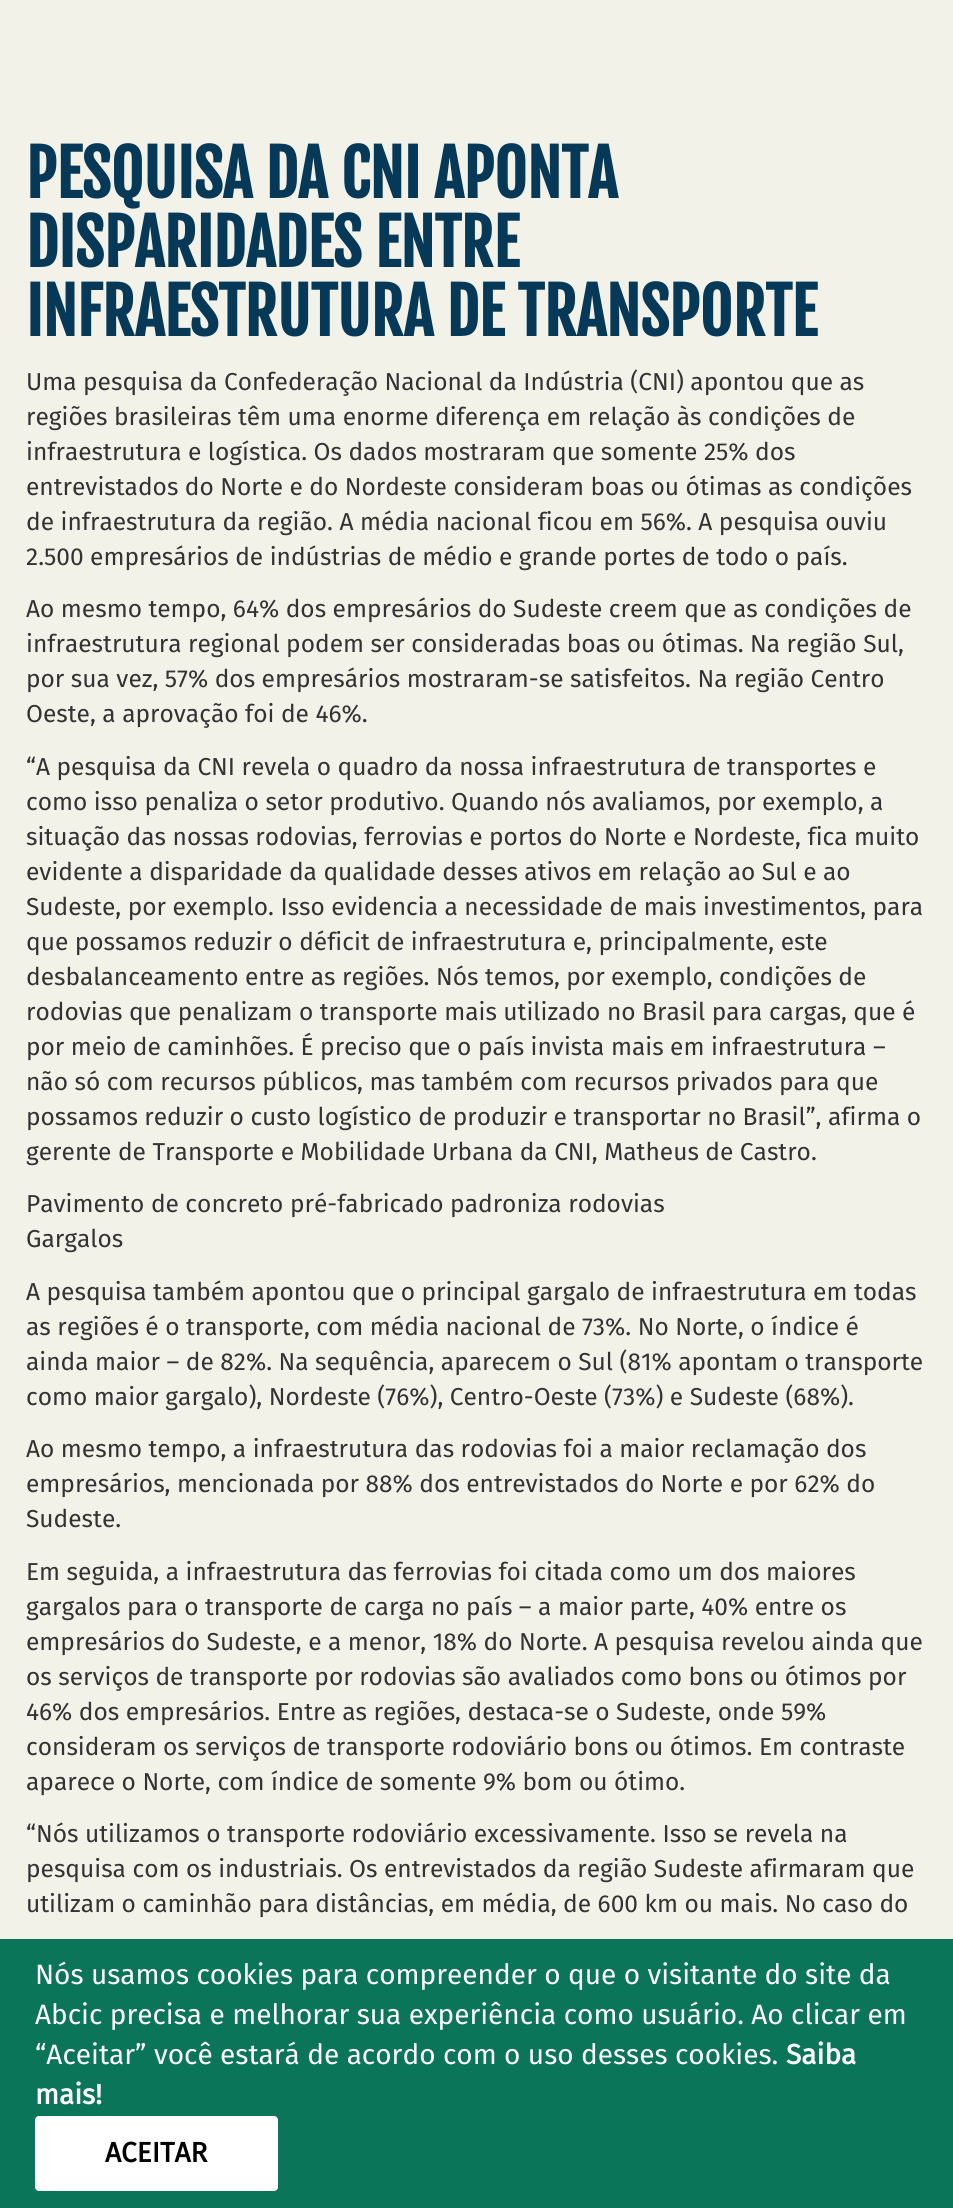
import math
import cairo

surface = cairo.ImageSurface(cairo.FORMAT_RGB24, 953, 2208)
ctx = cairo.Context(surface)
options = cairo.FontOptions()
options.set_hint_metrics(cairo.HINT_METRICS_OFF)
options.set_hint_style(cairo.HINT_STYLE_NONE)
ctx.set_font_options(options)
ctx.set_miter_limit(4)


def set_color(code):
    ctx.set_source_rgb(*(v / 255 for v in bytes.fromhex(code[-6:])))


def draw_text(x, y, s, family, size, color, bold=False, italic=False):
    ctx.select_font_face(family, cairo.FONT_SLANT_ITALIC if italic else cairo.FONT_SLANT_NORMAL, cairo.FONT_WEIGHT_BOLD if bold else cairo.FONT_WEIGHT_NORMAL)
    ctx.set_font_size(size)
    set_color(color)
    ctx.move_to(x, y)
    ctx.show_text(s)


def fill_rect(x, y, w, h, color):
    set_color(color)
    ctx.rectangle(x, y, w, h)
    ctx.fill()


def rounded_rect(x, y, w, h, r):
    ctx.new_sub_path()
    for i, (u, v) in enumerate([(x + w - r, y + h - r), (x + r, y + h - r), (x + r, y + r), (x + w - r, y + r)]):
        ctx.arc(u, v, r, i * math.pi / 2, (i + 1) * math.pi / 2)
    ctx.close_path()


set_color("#f3f2e9")
ctx.paint()
draw_text(26, 198, "PESQUISA DA CNI APONTA", "Fjalla One", 63, "#063857", bold=True)
draw_text(26, 267, "DISPARIDADES ENTRE", "Fjalla One", 63, "#063857", bold=True)
draw_text(26, 336, "INFRAESTRUTURA DE TRANSPORTE", "Fjalla One", 63, "#063857", bold=True)
draw_text(26, 390, "Uma pesquisa da Confederação Nacional da Indústria (CNI) apontou que as", "Fira Sans", 24.5, "#333333")
draw_text(26, 425, "regiões brasileiras têm uma enorme diferença em relação às condições de", "Fira Sans", 24.5, "#333333")
draw_text(26, 460, "infraestrutura e logística. Os dados mostraram que somente 25% dos", "Fira Sans", 24.5, "#333333")
draw_text(26, 495, "entrevistados do Norte e do Nordeste consideram boas ou ótimas as condições", "Fira Sans", 24.5, "#333333")
draw_text(26, 530, "de infraestrutura da região. A média nacional ficou em 56%. A pesquisa ouviu", "Fira Sans", 24.5, "#333333")
draw_text(26, 565, "2.500 empresários de indústrias de médio e grande portes de todo o país.", "Fira Sans", 24.5, "#333333")
draw_text(26, 617, "Ao mesmo tempo, 64% dos empresários do Sudeste creem que as condições de", "Fira Sans", 24.5, "#333333")
draw_text(26, 652, "infraestrutura regional podem ser consideradas boas ou ótimas. Na região Sul,", "Fira Sans", 24.5, "#333333")
draw_text(26, 687, "por sua vez, 57% dos empresários mostraram-se satisfeitos. Na região Centro", "Fira Sans", 24.5, "#333333")
draw_text(26, 722, "Oeste, a aprovação foi de 46%.", "Fira Sans", 24.5, "#333333")
draw_text(26, 775, "“A pesquisa da CNI revela o quadro da nossa infraestrutura de transportes e", "Fira Sans", 24.5, "#333333")
draw_text(26, 810, "como isso penaliza o setor produtivo. Quando nós avaliamos, por exemplo, a", "Fira Sans", 24.5, "#333333")
draw_text(26, 845, "situação das nossas rodovias, ferrovias e portos do Norte e Nordeste, fica muito", "Fira Sans", 24.5, "#333333")
draw_text(26, 880, "evidente a disparidade da qualidade desses ativos em relação ao Sul e ao", "Fira Sans", 24.5, "#333333")
draw_text(26, 915, "Sudeste, por exemplo. Isso evidencia a necessidade de mais investimentos, para", "Fira Sans", 24.5, "#333333")
draw_text(26, 950, "que possamos reduzir o déficit de infraestrutura e, principalmente, este", "Fira Sans", 24.5, "#333333")
draw_text(26, 985, "desbalanceamento entre as regiões. Nós temos, por exemplo, condições de", "Fira Sans", 24.5, "#333333")
draw_text(26, 1020, "rodovias que penalizam o transporte mais utilizado no Brasil para cargas, que é", "Fira Sans", 24.5, "#333333")
draw_text(26, 1055, "por meio de caminhões. É preciso que o país invista mais em infraestrutura –", "Fira Sans", 24.5, "#333333")
draw_text(26, 1090, "não só com recursos públicos, mas também com recursos privados para que", "Fira Sans", 24.5, "#333333")
draw_text(26, 1125, "possamos reduzir o custo logístico de produzir e transportar no Brasil”, afirma o", "Fira Sans", 24.5, "#333333")
draw_text(26, 1160, "gerente de Transporte e Mobilidade Urbana da CNI, Matheus de Castro.", "Fira Sans", 24.5, "#333333")
draw_text(26, 1212, "Pavimento de concreto pré-fabricado padroniza rodovias", "Fira Sans", 24.5, "#333333")
draw_text(26, 1247, "Gargalos", "Fira Sans", 24.5, "#333333")
draw_text(26, 1300, "A pesquisa também apontou que o principal gargalo de infraestrutura em todas", "Fira Sans", 24.5, "#333333")
draw_text(26, 1335, "as regiões é o transporte, com média nacional de 73%. No Norte, o índice é", "Fira Sans", 24.5, "#333333")
draw_text(26, 1370, "ainda maior – de 82%. Na sequência, aparecem o Sul (81% apontam o transporte", "Fira Sans", 24.5, "#333333")
draw_text(26, 1405, "como maior gargalo), Nordeste (76%), Centro-Oeste (73%) e Sudeste (68%).", "Fira Sans", 24.5, "#333333")
draw_text(26, 1457, "Ao mesmo tempo, a infraestrutura das rodovias foi a maior reclamação dos", "Fira Sans", 24.5, "#333333")
draw_text(26, 1492, "empresários, mencionada por 88% dos entrevistados do Norte e por 62% do", "Fira Sans", 24.5, "#333333")
draw_text(26, 1527, "Sudeste.", "Fira Sans", 24.5, "#333333")
draw_text(26, 1580, "Em seguida, a infraestrutura das ferrovias foi citada como um dos maiores", "Fira Sans", 24.5, "#333333")
draw_text(26, 1615, "gargalos para o transporte de carga no país – a maior parte, 40% entre os", "Fira Sans", 24.5, "#333333")
draw_text(26, 1650, "empresários do Sudeste, e a menor, 18% do Norte. A pesquisa revelou ainda que", "Fira Sans", 24.5, "#333333")
draw_text(26, 1685, "os serviços de transporte por rodovias são avaliados como bons ou ótimos por", "Fira Sans", 24.5, "#333333")
draw_text(26, 1720, "46% dos empresários. Entre as regiões, destaca-se o Sudeste, onde 59%", "Fira Sans", 24.5, "#333333")
draw_text(26, 1755, "consideram os serviços de transporte rodoviário bons ou ótimos. Em contraste", "Fira Sans", 24.5, "#333333")
draw_text(26, 1790, "aparece o Norte, com índice de somente 9% bom ou ótimo.", "Fira Sans", 24.5, "#333333")
draw_text(26, 1842, "“Nós utilizamos o transporte rodoviário excessivamente. Isso se revela na", "Fira Sans", 24.5, "#333333")
draw_text(26, 1877, "pesquisa com os industriais. Os entrevistados da região Sudeste afirmaram que", "Fira Sans", 24.5, "#333333")
draw_text(26, 1912, "utilizam o caminhão para distâncias, em média, de 600 km ou mais. No caso do", "Fira Sans", 24.5, "#333333")
fill_rect(0, 1939, 953, 269, "#0b755a")
draw_text(35, 1984, "Nós usamos cookies para compreender o que o visitante do site da", "Fira Sans", 28, "#ffffff")
draw_text(35, 2024, "Abcic precisa e melhorar sua experiência como usuário. Ao clicar em", "Fira Sans", 28, "#ffffff")
draw_text(35, 2064, "“Aceitar” você estará de acordo com o uso desses cookies.", "Fira Sans", 28, "#ffffff")
draw_text(786, 2064, "Saiba", "Fira Sans", 28, "#ffffff", bold=True)
draw_text(35, 2104, "mais!", "Fira Sans", 28, "#ffffff", bold=True)
rounded_rect(35, 2116, 243, 75, 4)
ctx.fill()
draw_text(105, 2162, "ACEITAR", "Fira Sans", 28, "#000000", bold=True)
surface.write_to_png("output.png")
